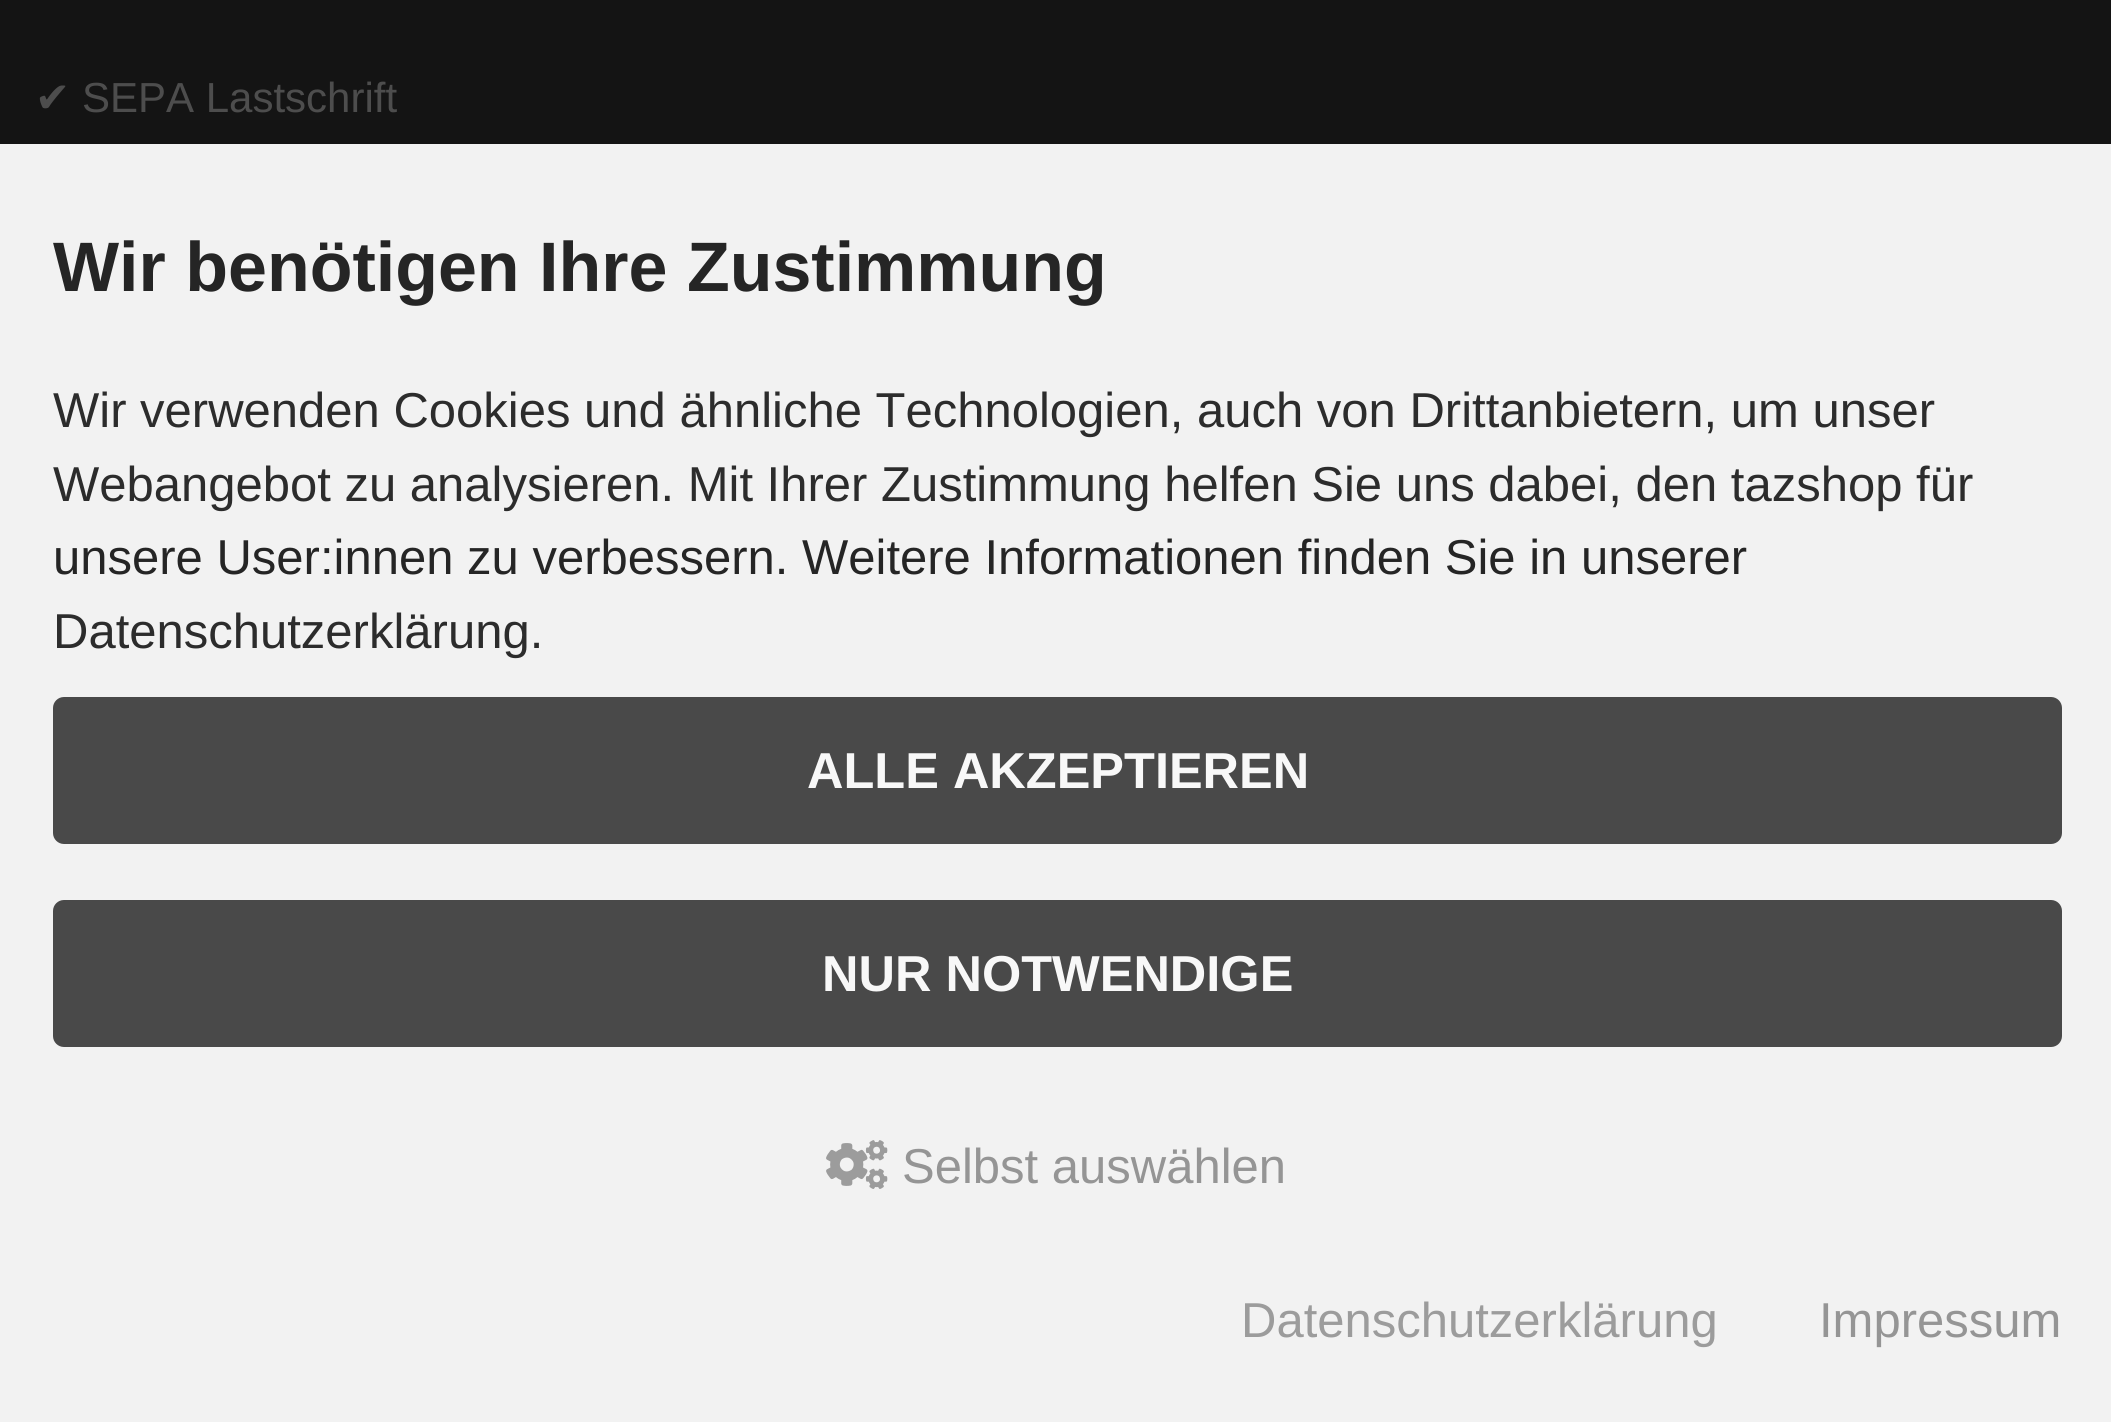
import math
import cairo

surface = cairo.ImageSurface(cairo.FORMAT_RGB24, 2111, 1422)
ctx = cairo.Context(surface)
options = cairo.FontOptions()
options.set_hint_metrics(cairo.HINT_METRICS_OFF)
options.set_hint_style(cairo.HINT_STYLE_NONE)
ctx.set_font_options(options)
ctx.set_miter_limit(4)


def set_color(code):
    ctx.set_source_rgb(*(v / 255 for v in bytes.fromhex(code[-6:])))


def draw_text(x, y, s, family, size, color, bold=False, italic=False):
    ctx.select_font_face(family, cairo.FONT_SLANT_ITALIC if italic else cairo.FONT_SLANT_NORMAL, cairo.FONT_WEIGHT_BOLD if bold else cairo.FONT_WEIGHT_NORMAL)
    ctx.set_font_size(size)
    set_color(color)
    ctx.move_to(x, y)
    ctx.show_text(s)


def fill_rect(x, y, w, h, color):
    set_color(color)
    ctx.rectangle(x, y, w, h)
    ctx.fill()


def rounded_rect(x, y, w, h, r):
    ctx.new_sub_path()
    for i, (u, v) in enumerate([(x + w - r, y + h - r), (x + r, y + h - r), (x + r, y + r), (x + w - r, y + r)]):
        ctx.arc(u, v, r, i * math.pi / 2, (i + 1) * math.pi / 2)
    ctx.close_path()


def draw_image(path, x, y, w, h):
    ctx.save()
    ctx.set_source_surface(cairo.ImageSurface.create_from_png(path), x, y)
    ctx.rectangle(x, y, w, h)
    ctx.fill()
    ctx.restore()


set_color("#141414")
ctx.paint()
fill_rect(0, 144, 2111, 1278, "#f2f2f2")
draw_text(35, 112, "✔", "DejaVu Sans", 42, "#4d4d4d")
draw_text(82, 112, "SEPA Lastschrift", "Liberation Sans", 42, "#4d4d4d")
draw_text(53, 291, "Wir benötigen Ihre Zustimmung", "Liberation Sans", 70, "#252525", bold=True)
draw_text(53, 427, "Wir verwenden Cookies und ähnliche Technologien, auch von Drittanbietern, um unser", "Liberation Sans", 49, "#2c2c2c")
draw_text(53, 501, "Webangebot zu analysieren. Mit Ihrer Zustimmung helfen Sie uns dabei, den tazshop für", "Liberation Sans", 49, "#2c2c2c")
draw_text(53, 574, "unsere User:innen zu verbessern. Weitere Informationen finden Sie in unserer", "Liberation Sans", 49, "#252525")
draw_text(53, 648, "Datenschutzerklärung.", "Liberation Sans", 49, "#2c2c2c")
set_color("#494949")
rounded_rect(53, 697, 2009, 147, 11)
ctx.fill()
draw_text(807, 788, "ALLE AKZEPTIEREN", "Liberation Sans", 50.5, "#f8f8f8", bold=True)
set_color("#494949")
rounded_rect(53, 900, 2009, 147, 11)
ctx.fill()
draw_text(822, 991, "NUR NOTWENDIGE", "Liberation Sans", 50.5, "#f8f8f8", bold=True)
draw_image("assets/img1.png", 826, 1140, 62, 49)
draw_text(902, 1183, "Selbst auswählen", "Liberation Sans", 49, "#959595")
draw_text(1241, 1337, "Datenschutzerklärung", "Liberation Sans", 49, "#9c9c9c")
draw_text(1819, 1337, "Impressum", "Liberation Sans", 49, "#959595")
surface.write_to_png("output.png")
